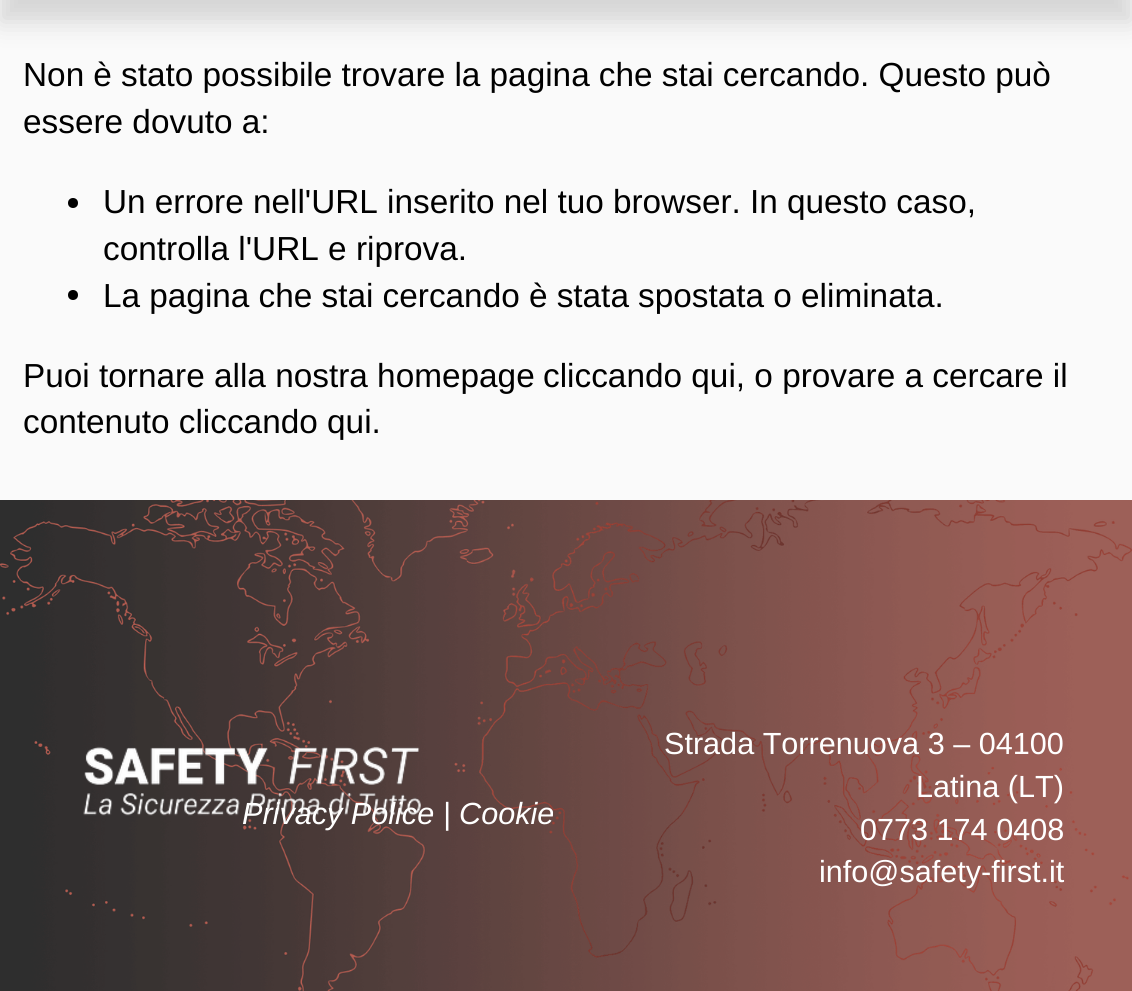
import math
import cairo

surface = cairo.ImageSurface(cairo.FORMAT_RGB24, 1132, 991)
ctx = cairo.Context(surface)
options = cairo.FontOptions()
options.set_hint_metrics(cairo.HINT_METRICS_OFF)
options.set_hint_style(cairo.HINT_STYLE_NONE)
ctx.set_font_options(options)
ctx.set_miter_limit(4)


def set_color(code):
    ctx.set_source_rgb(*(v / 255 for v in bytes.fromhex(code[-6:])))


def draw_text(x, y, s, family, size, color, bold=False, italic=False):
    ctx.select_font_face(family, cairo.FONT_SLANT_ITALIC if italic else cairo.FONT_SLANT_NORMAL, cairo.FONT_WEIGHT_BOLD if bold else cairo.FONT_WEIGHT_NORMAL)
    ctx.set_font_size(size)
    set_color(color)
    ctx.move_to(x, y)
    ctx.show_text(s)


def draw_spaced(x, y, s, letter, word):
    ctx.move_to(x, y)
    for ch in s:
        ctx.show_text(ch)
        ctx.rel_move_to(letter + word * (ch == ' '), 0)


def rounded_rect(x, y, w, h, r):
    ctx.new_sub_path()
    for i, (u, v) in enumerate([(x + w - r, y + h - r), (x + r, y + h - r), (x + r, y + r), (x + w - r, y + r)]):
        ctx.arc(u, v, r, i * math.pi / 2, (i + 1) * math.pi / 2)
    ctx.close_path()


def draw_shadow(x, y, w, h, r, blur, alpha):
    ctx.push_group_with_content(cairo.CONTENT_ALPHA)
    ctx.set_operator(cairo.OPERATOR_SOURCE)
    for i in range(15, -16, -2):
        e = blur * i / 6
        if min(w, h) + 2 * e > 0:
            ctx.set_source_rgba(0, 0, 0, alpha * math.erfc((i - 1) / 8.5) / 2)
            rounded_rect(x - e, y - e, w + 2 * e, h + 2 * e, max(0, min(r + e + blur * .6, min(w, h) / 2 + e)))
            ctx.fill()
    ctx.mask(ctx.pop_group())


def draw_image(path, x, y, w, h):
    ctx.save()
    ctx.set_source_surface(cairo.ImageSurface.create_from_png(path), x, y)
    ctx.rectangle(x, y, w, h)
    ctx.fill()
    ctx.restore()


set_color("#fafafa")
ctx.paint()
set_color("#d5d5d5")
draw_shadow(0, -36, 1132, 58, 0, 12, 1)
ctx.select_font_face("Liberation Sans")
ctx.set_font_size(33.35)
set_color("#000000")
draw_spaced(23, 86, "Non è stato possibile trovare la pagina che stai cercando. Questo può", 0, -0.1)
draw_text(23, 133, "essere dovuto a:", "Liberation Sans", 33.35, "#000000")
ctx.new_path()
ctx.arc(73, 203, 5, 0, 2 * math.pi)
ctx.fill()
draw_spaced(103, 213, "Un errore nell'URL inserito nel tuo browser. In questo caso,", 0, -0.1)
draw_text(103, 260, "controlla l'URL e riprova.", "Liberation Sans", 33.35, "#000000")
ctx.new_path()
ctx.arc(73, 295, 5, 0, 2 * math.pi)
ctx.fill()
draw_spaced(103, 307, "La pagina che stai cercando è stata spostata o eliminata.", 0, -0.1)
draw_text(23, 387, "Puoi tornare alla nostra homepage", "Liberation Sans", 33.35, "#000000")
draw_text(543, 387, "cliccando qui, o provare a cercare il", "Liberation Sans", 33.35, "#000000")
draw_text(23, 433, "contenuto cliccando qui.", "Liberation Sans", 33.35, "#000000")
draw_image("assets/img1.png", 0, 500, 1132, 491)
draw_image("assets/img2.png", 83, 746, 338, 70)
draw_text(664, 754, "Strada Torrenuova 3 – 04100", "Liberation Sans", 30.6, "#ffffff")
draw_text(916, 797, "Latina (LT)", "Liberation Sans", 30.6, "#ffffff")
draw_text(860, 840, "0773 174 0408", "Liberation Sans", 30.6, "#ffffff")
draw_text(819, 882, "info@safety-first.it", "Liberation Sans", 30.6, "#ffffff")
draw_text(242, 824, "Privacy Police | Cookie", "Liberation Sans", 30.6, "#ffffff", italic=True)
surface.write_to_png("output.png")
